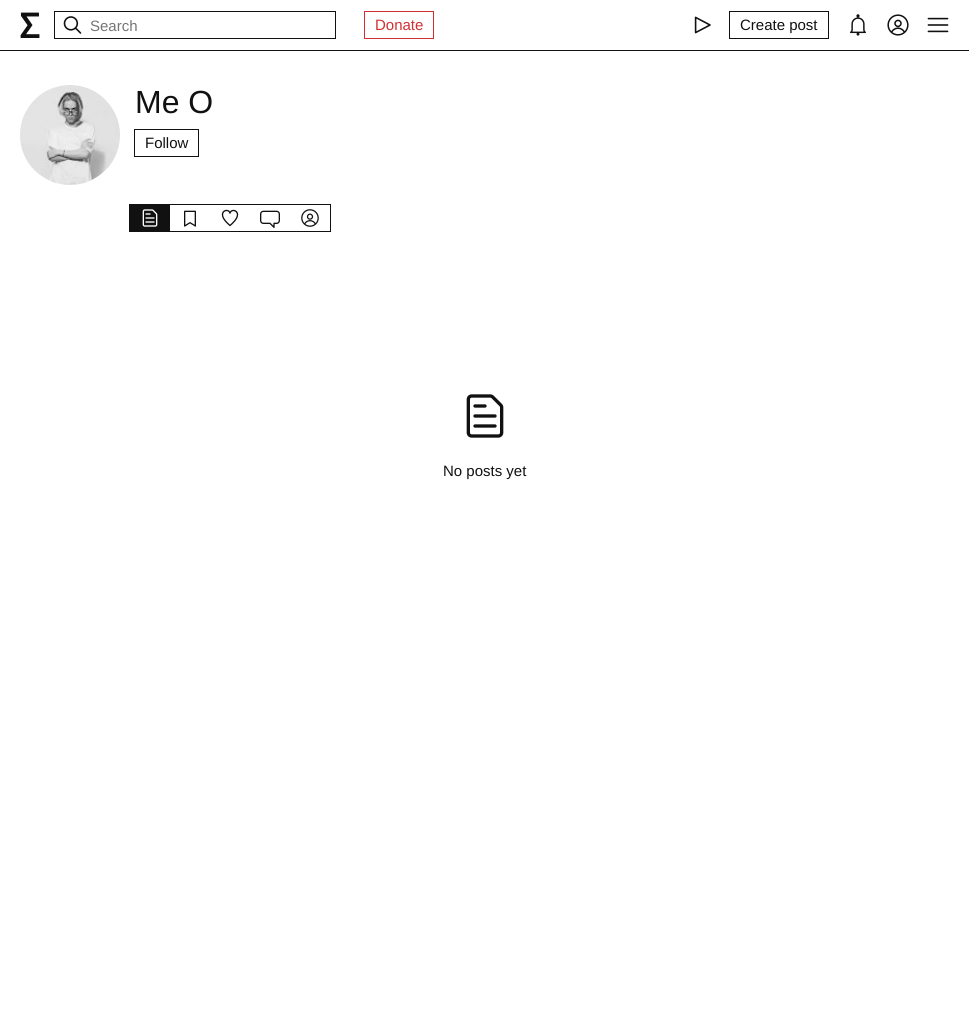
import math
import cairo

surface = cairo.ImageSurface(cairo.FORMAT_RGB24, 969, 1035)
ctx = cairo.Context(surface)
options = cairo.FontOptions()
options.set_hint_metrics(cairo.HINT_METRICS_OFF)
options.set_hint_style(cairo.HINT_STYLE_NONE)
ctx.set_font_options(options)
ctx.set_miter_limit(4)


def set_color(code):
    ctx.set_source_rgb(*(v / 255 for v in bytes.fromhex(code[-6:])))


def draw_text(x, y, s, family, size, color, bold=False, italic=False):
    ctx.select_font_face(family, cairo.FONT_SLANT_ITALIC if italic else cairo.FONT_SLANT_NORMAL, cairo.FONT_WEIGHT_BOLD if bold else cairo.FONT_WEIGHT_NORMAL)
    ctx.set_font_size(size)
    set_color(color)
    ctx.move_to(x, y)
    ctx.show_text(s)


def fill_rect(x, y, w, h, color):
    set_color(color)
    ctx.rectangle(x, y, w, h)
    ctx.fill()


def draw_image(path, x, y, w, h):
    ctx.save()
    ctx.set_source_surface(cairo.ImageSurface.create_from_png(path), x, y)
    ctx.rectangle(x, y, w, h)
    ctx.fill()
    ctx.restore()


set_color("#ffffff")
ctx.paint()
fill_rect(0, 50, 969, 1, "#111111")
draw_image("assets/img1.png", 20, 12, 20, 26)
ctx.rectangle(54.5, 11.5, 281, 27)
ctx.set_line_width(1)
ctx.stroke()
draw_image("assets/img2.png", 63, 16, 19, 18)
draw_text(90, 31, "Search", "Liberation Sans", 15, "#757575")
ctx.rectangle(364.5, 11.5, 69, 27)
set_color("#d23030")
ctx.stroke()
draw_text(375, 30, "Donate", "Liberation Sans", 15, "#d23030")
draw_image("assets/img3.png", 694, 16, 17, 18)
ctx.rectangle(729.5, 11.5, 99, 27)
set_color("#111111")
ctx.stroke()
draw_text(740, 30, "Create post", "Liberation Sans", 15, "#111111")
draw_image("assets/img4.png", 850, 14, 16, 22)
draw_image("assets/img5.png", 887, 14, 22, 22)
draw_image("assets/img6.png", 927, 17, 22, 16)
draw_image("assets/img7.png", 20, 85, 100, 100)
draw_text(135, 113, "Me O", "Liberation Sans", 32, "#111111")
ctx.rectangle(134.5, 129.5, 64, 27)
ctx.stroke()
draw_text(145, 148, "Follow", "Liberation Sans", 15, "#111111")
ctx.rectangle(129.5, 204.5, 201, 27)
ctx.stroke()
fill_rect(130, 205, 40, 26, "#111111")
draw_image("assets/img8.png", 142, 209, 16, 18)
draw_image("assets/img9.png", 184, 210, 12, 17)
draw_image("assets/img10.png", 221, 209, 18, 18)
draw_image("assets/img11.png", 260, 210, 20, 18)
draw_image("assets/img12.png", 301, 209, 18, 18)
draw_image("assets/img13.png", 466, 394, 38, 44)
draw_text(443, 476, "No posts yet", "Liberation Sans", 15, "#111111")
surface.write_to_png("output.png")
